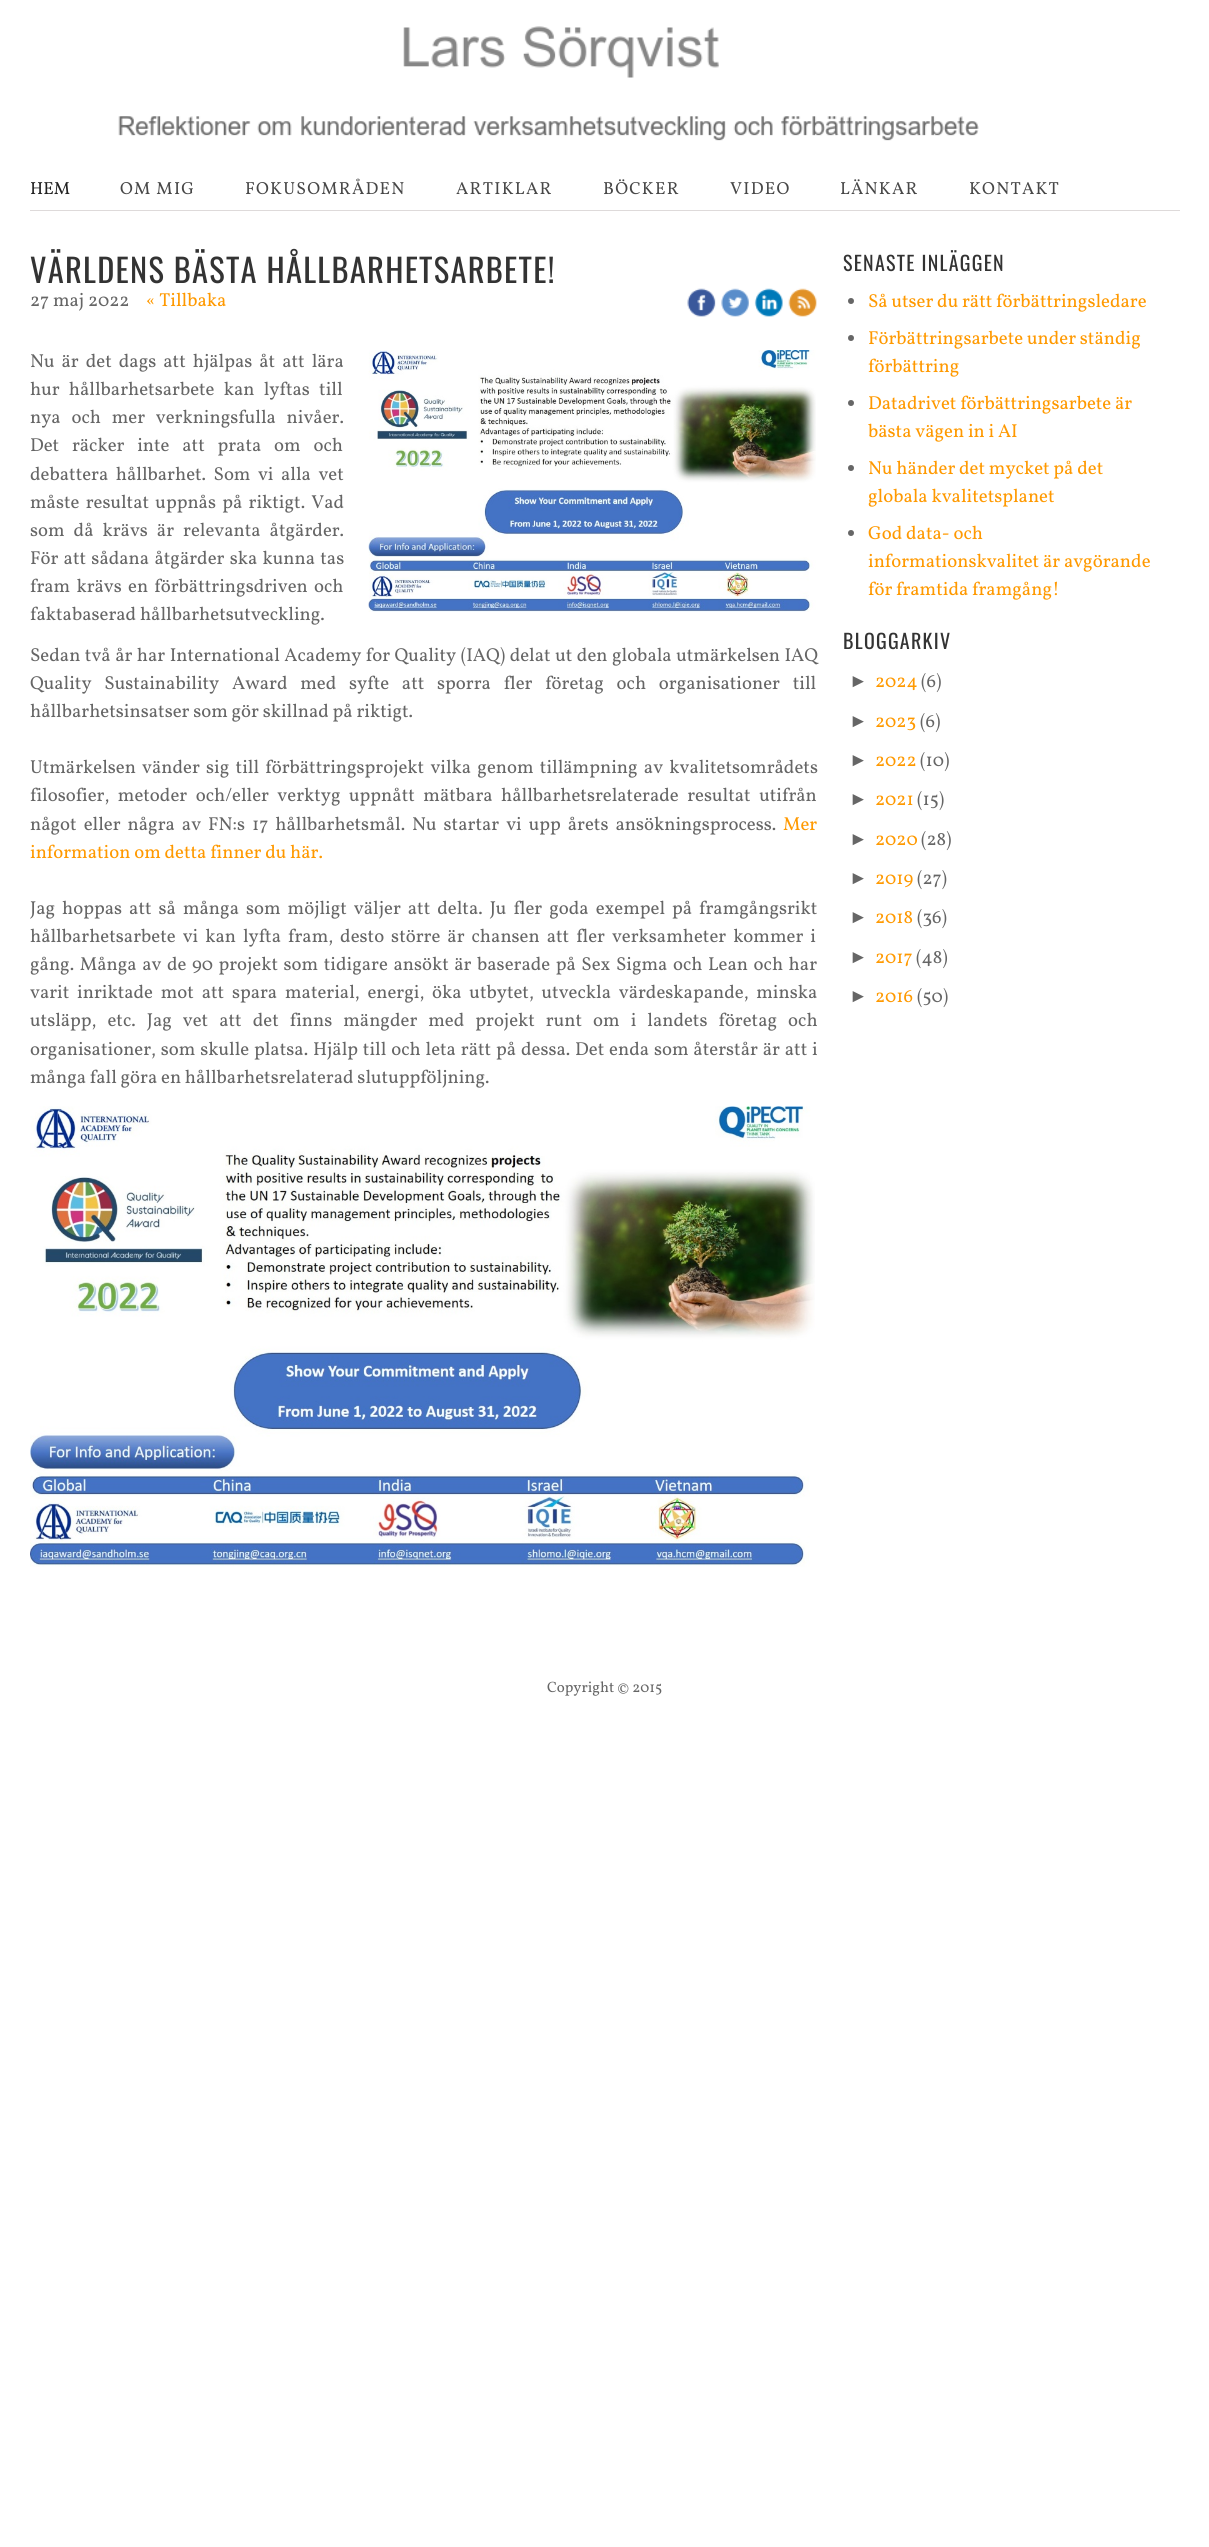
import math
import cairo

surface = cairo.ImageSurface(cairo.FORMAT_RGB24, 1209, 2547)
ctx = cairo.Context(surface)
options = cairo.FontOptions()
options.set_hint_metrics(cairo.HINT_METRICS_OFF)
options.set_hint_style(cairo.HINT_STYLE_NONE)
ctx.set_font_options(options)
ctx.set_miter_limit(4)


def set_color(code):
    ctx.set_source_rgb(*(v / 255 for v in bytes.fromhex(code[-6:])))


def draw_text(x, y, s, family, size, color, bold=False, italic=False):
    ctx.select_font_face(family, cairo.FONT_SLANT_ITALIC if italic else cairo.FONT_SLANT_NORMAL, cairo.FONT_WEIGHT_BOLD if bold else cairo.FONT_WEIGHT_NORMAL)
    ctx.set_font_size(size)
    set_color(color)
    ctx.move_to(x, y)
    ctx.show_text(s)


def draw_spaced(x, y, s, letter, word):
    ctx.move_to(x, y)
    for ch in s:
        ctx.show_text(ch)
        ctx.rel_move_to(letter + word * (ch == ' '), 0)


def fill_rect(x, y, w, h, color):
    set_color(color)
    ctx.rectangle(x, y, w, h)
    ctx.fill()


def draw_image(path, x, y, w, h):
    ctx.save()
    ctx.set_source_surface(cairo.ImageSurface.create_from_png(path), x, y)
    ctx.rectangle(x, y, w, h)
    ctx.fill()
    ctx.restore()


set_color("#ffffff")
ctx.paint()
draw_image("assets/img1.png", 118, 116, 861, 25)
draw_image("assets/img2.png", 403, 26, 316, 52)
fill_rect(30, 210, 1150, 1, "#dedada")
draw_text(30, 194, "HEM", "Vollkorn", 17.5, "#212121")
set_color("#474747")
draw_spaced(120, 194, "OM MIG", 1.25, 0)
draw_spaced(245, 194, "FOKUSOMRÅDEN", 1.25, 0)
draw_spaced(456, 194, "ARTIKLAR", 1.25, 0)
draw_spaced(603, 194, "BÖCKER", 1.25, 0)
draw_spaced(730, 194, "VIDEO", 1.25, 0)
draw_spaced(840, 194, "LÄNKAR", 1.25, 0)
draw_spaced(969, 194, "KONTAKT", 1.25, 0)
ctx.select_font_face("Oswald")
ctx.set_font_size(32.5)
set_color("#333333")
draw_spaced(30, 283, "VÄRLDENS BÄSTA HÅLLBARHETSARBETE!", 1.25, 0)
draw_text(30, 306, "27 maj 2022", "Vollkorn", 18.75, "#666666")
draw_text(146, 306, "« Tillbaka", "Vollkorn", 18.75, "#ff9900")
draw_image("assets/img3.png", 687, 288, 29, 29)
draw_image("assets/img4.png", 721, 288, 28, 29)
draw_image("assets/img5.png", 754, 288, 29, 29)
draw_image("assets/img6.png", 788, 288, 29, 29)
set_color("#666666")
draw_spaced(30, 367, "Nu är det dags att hjälpas åt att lära", 0, 3.25)
draw_spaced(30, 395, "hur hållbarhetsarbete kan lyftas till", 0, 5.5)
draw_spaced(30, 423, "nya och mer verkningsfulla nivåer.", 0, 7)
draw_spaced(30, 451, "Det räcker inte att prata om och", 0, 9)
draw_spaced(30, 480, "debattera hållbarhet. Som vi alla vet", 0, 3.75)
draw_spaced(30, 508, "måste resultat uppnås på riktigt. Vad", 0, 2.5)
draw_spaced(30, 536, "som då krävs är relevanta åtgärder.", 0, 5.25)
draw_spaced(30, 564, "För att sådana åtgärder ska kunna tas", 0, 1.5)
draw_spaced(30, 592, "fram krävs en förbättringsdriven och", 0, 2.5)
draw_text(30, 620, "faktabaserad hållbarhetsutveckling.", "Vollkorn", 18.75, "#666666")
draw_image("assets/img7.png", 368, 350, 448, 262)
draw_spaced(30, 661, "Sedan två år har International Academy for Quality (IAQ) delat ut den globala utmärkelsen IAQ", 0, 0.75)
draw_spaced(30, 689, "Quality Sustainability Award med syfte att sporra fler företag och organisationer till", 0, 9)
draw_text(30, 717, "hållbarhetsinsatser som gör skillnad på riktigt.", "Vollkorn", 18.75, "#666666")
draw_spaced(30, 773, "Utmärkelsen vänder sig till förbättringsprojekt vilka genom tillämpning av kvalitetsområdets", 0, 2.5)
draw_spaced(30, 801, "filosofier, metoder och/eller verktyg uppnått mätbara hållbarhetsrelaterade resultat utifrån", 0, 4.75)
draw_spaced(30, 830, "något eller några av FN:s 17 hållbarhetsmål. Nu startar vi upp årets ansökningsprocess.", 0, 3.25)
draw_text(783, 830, "Mer", "Vollkorn", 18.75, "#ff9900")
draw_text(30, 858, "information om detta finner du här.", "Vollkorn", 18.75, "#ff9900")
set_color("#666666")
draw_spaced(30, 914, "Jag hoppas att så många som möjligt väljer att delta. Ju fler goda exempel på framgångsrikt", 0, 3.25)
draw_spaced(30, 942, "hållbarhetsarbete vi kan lyfta fram, desto större är chansen att fler verksamheter kommer i", 0, 3.25)
draw_spaced(30, 970, "gång. Många av de 90 projekt som tidigare ansökt är baserade på Sex Sigma och Lean och har", 0, 1.8)
draw_spaced(30, 998, "varit inriktade mot att spara material, energi, öka utbytet, utveckla värdeskapande, minska", 0, 4)
draw_spaced(30, 1026, "utsläpp, etc. Jag vet att det finns mängder med projekt runt om i landets företag och", 0, 7.25)
draw_spaced(30, 1055, "organisationer, som skulle platsa. Hjälp till och leta rätt på dessa. Det enda som återstår är att i", 0, 1.1)
draw_text(30, 1083, "många fall göra en hållbarhetsrelaterad slutuppföljning.", "Vollkorn", 18.75, "#666666")
draw_image("assets/img8.png", 30, 1106, 785, 461)
ctx.select_font_face("Oswald")
ctx.set_font_size(20)
set_color("#333333")
draw_spaced(843, 271, "SENASTE INLÄGGEN", 1.25, 0)
set_color("#666666")
ctx.new_path()
ctx.arc(851, 301, 3, 0, 2 * math.pi)
ctx.fill()
draw_text(868, 307, "Så utser du rätt förbättringsledare", "Vollkorn", 18.75, "#ff9900")
set_color("#666666")
ctx.new_path()
ctx.arc(851, 338, 3, 0, 2 * math.pi)
ctx.fill()
draw_text(868, 344, "Förbättringsarbete under ständig", "Vollkorn", 18.75, "#ff9900")
draw_text(868, 372, "förbättring", "Vollkorn", 18.75, "#ff9900")
set_color("#666666")
ctx.new_path()
ctx.arc(851, 403, 3, 0, 2 * math.pi)
ctx.fill()
draw_text(868, 409, "Datadrivet förbättringsarbete är", "Vollkorn", 18.75, "#ff9900")
draw_text(868, 437, "bästa vägen in i AI", "Vollkorn", 18.75, "#ff9900")
set_color("#666666")
ctx.new_path()
ctx.arc(851, 468, 3, 0, 2 * math.pi)
ctx.fill()
draw_text(868, 474, "Nu händer det mycket på det", "Vollkorn", 18.75, "#ff9900")
draw_text(868, 502, "globala kvalitetsplanet", "Vollkorn", 18.75, "#ff9900")
set_color("#666666")
ctx.new_path()
ctx.arc(851, 533, 3, 0, 2 * math.pi)
ctx.fill()
draw_text(868, 539, "God data- och", "Vollkorn", 18.75, "#ff9900")
draw_text(868, 567, "informationskvalitet är avgörande", "Vollkorn", 18.75, "#ff9900")
draw_text(868, 595, "för framtida framgång!", "Vollkorn", 18.75, "#ff9900")
ctx.select_font_face("Oswald")
ctx.set_font_size(20)
set_color("#333333")
draw_spaced(843, 649, "BLOGGARKIV", 1.25, 0)
draw_text(849, 687, "►", "Liberation Sans", 18.75, "#666666")
draw_text(875, 687, "2024", "Vollkorn", 18.75, "#ff9900")
draw_text(921, 687, "(6)", "Vollkorn", 18.75, "#666666")
draw_text(849, 727, "►", "Liberation Sans", 18.75, "#666666")
draw_text(875, 727, "2023", "Vollkorn", 18.75, "#ff9900")
draw_text(920, 727, "(6)", "Vollkorn", 18.75, "#666666")
draw_text(849, 766, "►", "Liberation Sans", 18.75, "#666666")
draw_text(875, 766, "2022", "Vollkorn", 18.75, "#ff9900")
draw_text(920, 766, "(10)", "Vollkorn", 18.75, "#666666")
draw_text(849, 805, "►", "Liberation Sans", 18.75, "#666666")
draw_text(875, 805, "2021", "Vollkorn", 18.75, "#ff9900")
draw_text(917, 805, "(15)", "Vollkorn", 18.75, "#666666")
draw_text(849, 845, "►", "Liberation Sans", 18.75, "#666666")
draw_text(875, 845, "2020", "Vollkorn", 18.75, "#ff9900")
draw_text(921, 845, "(28)", "Vollkorn", 18.75, "#666666")
draw_text(849, 884, "►", "Liberation Sans", 18.75, "#666666")
draw_text(875, 884, "2019", "Vollkorn", 18.75, "#ff9900")
draw_text(917, 884, "(27)", "Vollkorn", 18.75, "#666666")
draw_text(849, 923, "►", "Liberation Sans", 18.75, "#666666")
draw_text(875, 923, "2018", "Vollkorn", 18.75, "#ff9900")
draw_text(917, 923, "(36)", "Vollkorn", 18.75, "#666666")
draw_text(849, 963, "►", "Liberation Sans", 18.75, "#666666")
draw_text(875, 963, "2017", "Vollkorn", 18.75, "#ff9900")
draw_text(916, 963, "(48)", "Vollkorn", 18.75, "#666666")
draw_text(849, 1002, "►", "Liberation Sans", 18.75, "#666666")
draw_text(875, 1002, "2016", "Vollkorn", 18.75, "#ff9900")
draw_text(917, 1002, "(50)", "Vollkorn", 18.75, "#666666")
draw_text(547, 1692, "Copyright © 2015", "Vollkorn", 15, "#666666")
surface.write_to_png("output.png")
